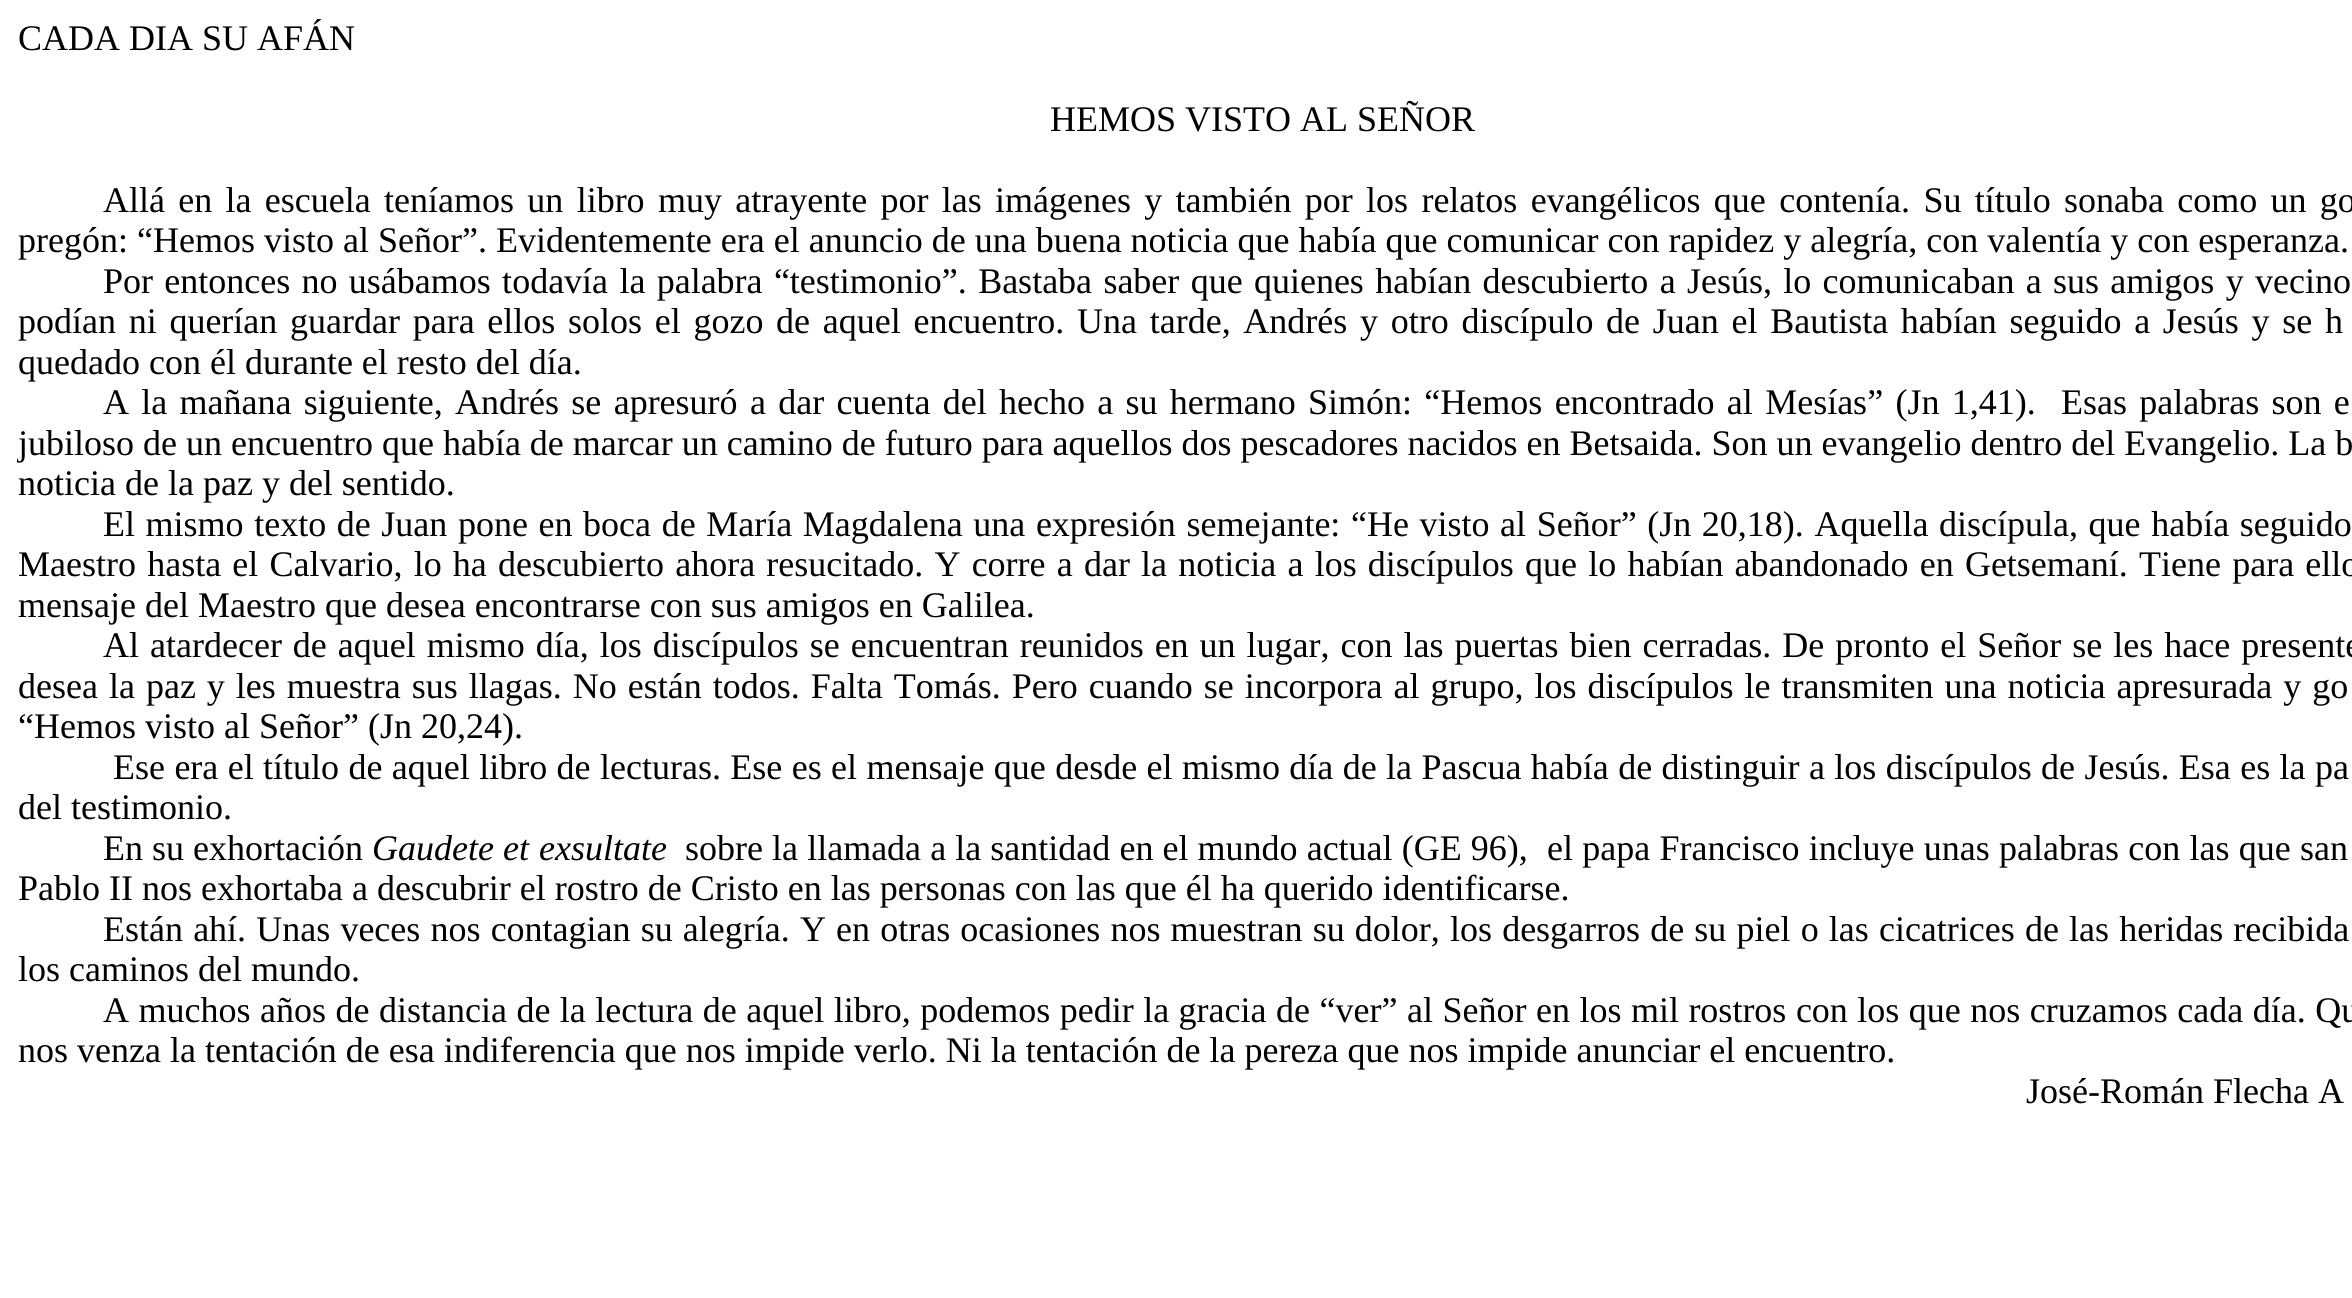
import math
import cairo

surface = cairo.ImageSurface(cairo.FORMAT_RGB24, 2352, 1298)
ctx = cairo.Context(surface)
options = cairo.FontOptions()
options.set_hint_metrics(cairo.HINT_METRICS_OFF)
options.set_hint_style(cairo.HINT_STYLE_NONE)
ctx.set_font_options(options)
ctx.set_miter_limit(4)


def set_color(code):
    ctx.set_source_rgb(*(v / 255 for v in bytes.fromhex(code[-6:])))


def draw_text(x, y, s, family, size, color, bold=False, italic=False):
    ctx.select_font_face(family, cairo.FONT_SLANT_ITALIC if italic else cairo.FONT_SLANT_NORMAL, cairo.FONT_WEIGHT_BOLD if bold else cairo.FONT_WEIGHT_NORMAL)
    ctx.set_font_size(size)
    set_color(color)
    ctx.move_to(x, y)
    ctx.show_text(s)


def draw_spaced(x, y, s, letter, word):
    ctx.move_to(x, y)
    for ch in s:
        ctx.show_text(ch)
        ctx.rel_move_to(letter + word * (ch == ' '), 0)


set_color("#ffffff")
ctx.paint()
draw_text(18, 50, "CADA DIA SU AFÁN", "Liberation Serif", 36, "#000000")
draw_text(1050, 131, "HEMOS VISTO AL SEÑOR", "Liberation Serif", 36, "#000000")
draw_spaced(103, 212, "Allá en la escuela teníamos un libro muy atrayente por las imágenes y también por los relatos evangélicos que contenía. Su título sonaba como un go", 0, 4.3)
draw_text(18, 252, "pregón: “Hemos visto al Señor”. Evidentemente era el anuncio de una buena noticia que había que comunicar con rapidez y alegría, con valentía y con esperanza.", "Liberation Serif", 36, "#000000")
draw_spaced(103, 293, "Por entonces no usábamos todavía la palabra “testimonio”. Bastaba saber que quienes habían descubierto a Jesús, lo comunicaban a sus amigos y vecino", 0, 2.3)
draw_spaced(18, 333, "podían ni querían guardar para ellos solos el gozo de aquel encuentro. Una tarde, Andrés y otro discípulo de Juan el Bautista habían seguido a Jesús y se h", 0, 3.7)
draw_text(18, 374, "quedado con él durante el resto del día.", "Liberation Serif", 36, "#000000")
draw_spaced(103, 414, "A la mañana siguiente, Andrés se apresuró a dar cuenta del hecho a su hermano Simón: “Hemos encontrado al Mesías” (Jn 1,41).", 0, 3.3)
draw_spaced(2061, 414, "Esas palabras son e", 0, 3.3)
draw_text(18, 455, "jubiloso de un encuentro que había de marcar un camino de futuro para aquellos dos pescadores nacidos en Betsaida. Son un evangelio dentro del Evangelio. La b", "Liberation Serif", 36, "#000000")
draw_text(18, 495, "noticia de la paz y del sentido.", "Liberation Serif", 36, "#000000")
draw_spaced(103, 536, "El mismo texto de Juan pone en boca de María Magdalena una expresión semejante: “He visto al Señor” (Jn 20,18). Aquella discípula, que había seguido", 0, 1.6)
draw_spaced(18, 576, "Maestro hasta el Calvario, lo ha descubierto ahora resucitado. Y corre a dar la noticia a los discípulos que lo habían abandonado en Getsemaní. Tiene para ello", 0, 2.2)
draw_text(18, 617, "mensaje del Maestro que desea encontrarse con sus amigos en Galilea.", "Liberation Serif", 36, "#000000")
draw_spaced(103, 657, "Al atardecer de aquel mismo día, los discípulos se encuentran reunidos en un lugar, con las puertas bien cerradas. De pronto el Señor se les hace presente", 0, 2)
draw_spaced(18, 698, "desea la paz y les muestra sus llagas. No están todos. Falta Tomás. Pero cuando se incorpora al grupo, los discípulos le transmiten una noticia apresurada y go", 0, 2)
draw_text(18, 738, "“Hemos visto al Señor” (Jn 20,24).", "Liberation Serif", 36, "#000000")
draw_spaced(113, 779, "Ese era el título de aquel libro de lecturas. Ese es el mensaje que desde el mismo día de la Pascua había de distinguir a los discípulos de Jesús. Esa es la pa", 0, 0.4)
draw_text(18, 819, "del testimonio.", "Liberation Serif", 36, "#000000")
draw_text(103, 860, "En su exhortación", "Liberation Serif", 36, "#000000")
draw_text(372, 860, "Gaudete et", "Liberation Serif", 36, "#000000", italic=True)
draw_text(539, 860, "exsultate", "Liberation Serif", 36, "#000000", italic=True)
ctx.select_font_face("Liberation Serif")
draw_spaced(685, 860, "sobre la llamada a la santidad en el mundo actual (GE 96),", 0, 0.1)
draw_spaced(1547, 860, "el papa Francisco incluye unas palabras con las que san", 0, 0.25)
draw_text(18, 900, "Pablo II nos exhortaba a descubrir el rostro de Cristo en las personas con las que él ha querido identificarse.", "Liberation Serif", 36, "#000000")
draw_spaced(103, 941, "Están ahí. Unas veces nos contagian su alegría. Y en otras ocasiones nos muestran su dolor, los desgarros de su piel o las cicatrices de las heridas recibida", 0, 1.15)
draw_text(18, 981, "los caminos del mundo.", "Liberation Serif", 36, "#000000")
draw_spaced(103, 1022, "A muchos años de distancia de la lectura de aquel libro, podemos pedir la gracia de “ver” al Señor en los mil rostros con los que nos cruzamos cada día. Qu", 0, 0.5)
draw_text(18, 1062, "nos venza la tentación de esa indiferencia que nos impide verlo. Ni la tentación de la pereza que nos impide anunciar el encuentro.", "Liberation Serif", 36, "#000000")
draw_text(2026, 1103, "José-Román Flecha A", "Liberation Serif", 36, "#000000")
surface.write_to_png("output.png")
